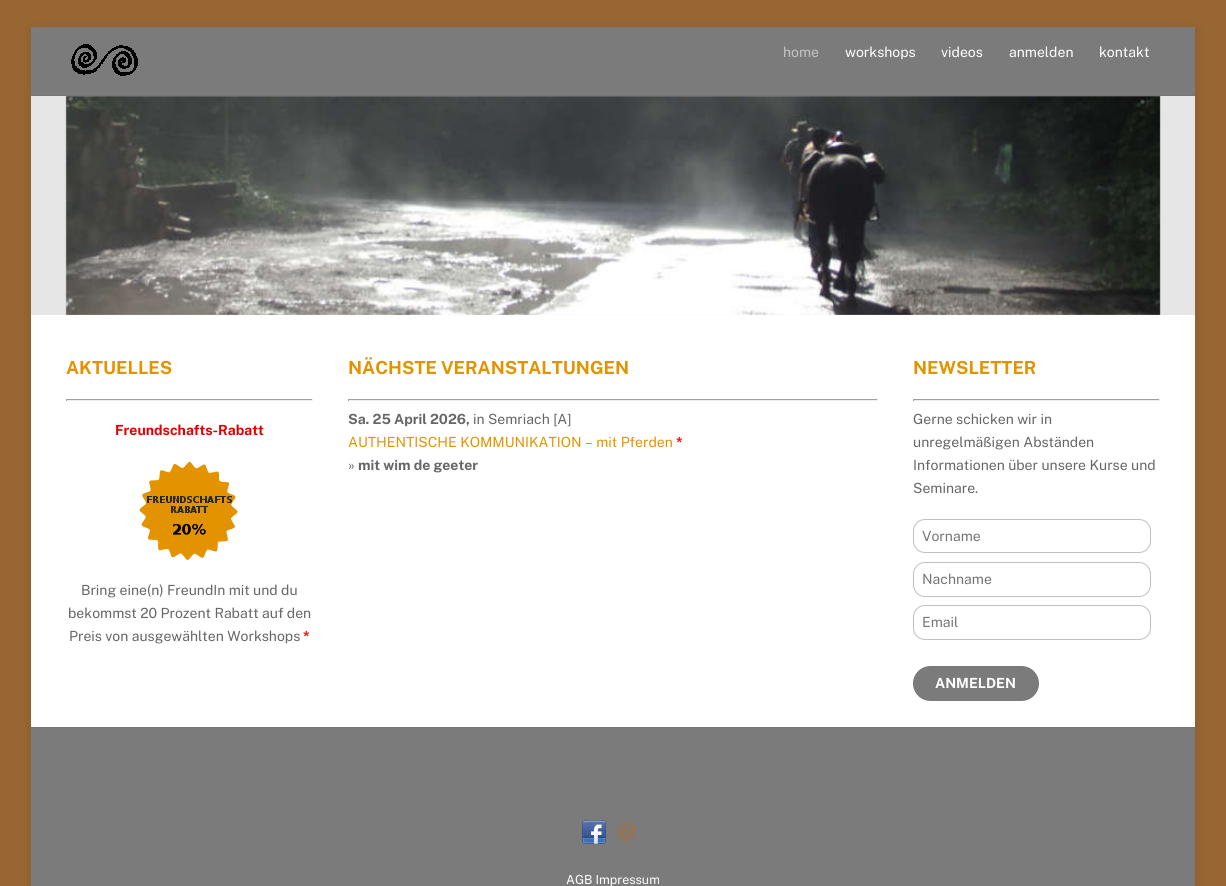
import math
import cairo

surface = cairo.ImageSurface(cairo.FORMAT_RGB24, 1226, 886)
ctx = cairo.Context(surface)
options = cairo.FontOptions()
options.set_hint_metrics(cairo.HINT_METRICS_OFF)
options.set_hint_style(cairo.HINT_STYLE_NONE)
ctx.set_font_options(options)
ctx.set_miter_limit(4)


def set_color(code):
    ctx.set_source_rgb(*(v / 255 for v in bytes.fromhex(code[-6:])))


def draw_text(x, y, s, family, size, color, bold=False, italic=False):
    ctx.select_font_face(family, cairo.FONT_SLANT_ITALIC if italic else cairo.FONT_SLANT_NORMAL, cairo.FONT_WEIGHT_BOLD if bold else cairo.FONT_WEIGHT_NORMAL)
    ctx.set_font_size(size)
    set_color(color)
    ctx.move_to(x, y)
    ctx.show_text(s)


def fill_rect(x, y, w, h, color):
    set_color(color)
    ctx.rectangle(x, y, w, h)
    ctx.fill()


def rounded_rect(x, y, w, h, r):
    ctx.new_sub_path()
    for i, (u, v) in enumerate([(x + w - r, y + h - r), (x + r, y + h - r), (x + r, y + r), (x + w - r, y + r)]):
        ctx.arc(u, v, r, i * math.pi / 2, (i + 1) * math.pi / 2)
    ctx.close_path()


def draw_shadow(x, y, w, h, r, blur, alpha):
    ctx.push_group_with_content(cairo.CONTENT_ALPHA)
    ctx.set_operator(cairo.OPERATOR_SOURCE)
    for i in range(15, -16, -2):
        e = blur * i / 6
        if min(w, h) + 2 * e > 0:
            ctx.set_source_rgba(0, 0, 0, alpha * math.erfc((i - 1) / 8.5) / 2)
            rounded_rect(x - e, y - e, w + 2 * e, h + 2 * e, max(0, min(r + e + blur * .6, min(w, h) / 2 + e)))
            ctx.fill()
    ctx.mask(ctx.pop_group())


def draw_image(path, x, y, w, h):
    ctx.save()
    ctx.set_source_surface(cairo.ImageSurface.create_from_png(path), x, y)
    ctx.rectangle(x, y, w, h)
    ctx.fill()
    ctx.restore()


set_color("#996633")
ctx.paint()
set_color("#000000")
draw_shadow(31, 30, 1164, 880, 0, 8, 0.1)
fill_rect(31, 315, 1164, 412, "#ffffff")
fill_rect(31, 27, 1164, 68, "#7b7b7b")
fill_rect(31, 95, 1164, 1, "#757575")
draw_image("assets/img1.png", 71, 44, 67, 32)
draw_text(783, 57, "home", "Public Sans", 14, "#c3c3c3")
draw_text(845, 57, "workshops", "Public Sans", 14, "#ffffff")
draw_text(941, 57, "videos", "Public Sans", 14, "#ffffff")
draw_text(1009, 57, "anmelden", "Public Sans", 14, "#ffffff")
draw_text(1099, 57, "kontakt", "Public Sans", 14, "#ffffff")
fill_rect(31, 96, 1164, 219, "#e6e6e6")
draw_image("assets/img2.png", 65, 96, 1096, 219)
draw_text(66, 374, "AKTUELLES", "Public Sans", 18, "#e49300", bold=True)
fill_rect(66, 399, 247, 1, "#9f9f9f")
fill_rect(312, 399, 1, 2, "#eeeeee")
fill_rect(66, 400, 247, 1, "#eeeeee")
fill_rect(66, 399, 1, 2, "#9f9f9f")
draw_text(115, 435, "Freundschafts-Rabatt", "Public Sans", 14, "#df0101", bold=True)
draw_image("assets/img3.png", 139, 461, 99, 100)
draw_text(81, 595, "Bring eine(n) FreundIn mit und du", "Public Sans", 14, "#666666")
draw_text(68, 618, "bekommst 20 Prozent Rabatt auf den", "Public Sans", 14, "#666666")
draw_text(69, 641, "Preis von ausgewählten Workshops", "Public Sans", 14, "#666666")
draw_text(303, 641, "*", "Public Sans", 14, "#ff0000", bold=True)
draw_text(348, 374, "NÄCHSTE VERANSTALTUNGEN", "Public Sans", 18, "#e49300", bold=True)
fill_rect(348, 399, 530, 1, "#9f9f9f")
fill_rect(877, 399, 1, 2, "#eeeeee")
fill_rect(348, 400, 530, 1, "#eeeeee")
fill_rect(348, 399, 1, 2, "#9f9f9f")
draw_text(348, 424, "Sa. 25 April 2026,", "Public Sans", 14, "#666666", bold=True)
draw_text(473, 424, "in Semriach [A]", "Public Sans", 14, "#666666")
draw_text(348, 447, "AUTHENTISCHE KOMMUNIKATION – mit Pferden", "Public Sans", 14, "#e49300")
draw_text(676, 447, "*", "Public Sans", 14, "#ff0000", bold=True)
draw_text(348, 470, "»", "Public Sans", 14, "#666666")
draw_text(358, 470, "mit wim de geeter", "Public Sans", 14, "#666666", bold=True)
draw_text(913, 374, "NEWSLETTER", "Public Sans", 18, "#e49300", bold=True)
fill_rect(913, 399, 247, 1, "#9f9f9f")
fill_rect(1159, 399, 1, 2, "#eeeeee")
fill_rect(913, 400, 247, 1, "#eeeeee")
fill_rect(913, 399, 1, 2, "#9f9f9f")
draw_text(913, 424, "Gerne schicken wir in", "Public Sans", 14, "#666666")
draw_text(913, 447, "unregelmäßigen Abständen", "Public Sans", 14, "#666666")
draw_text(913, 470, "Informationen über unsere Kurse und", "Public Sans", 14, "#666666")
draw_text(913, 493, "Seminare.", "Public Sans", 14, "#666666")
rounded_rect(913.5, 519.5, 237, 33, 11.5)
set_color("#bfbfbf")
ctx.set_line_width(1)
ctx.stroke()
draw_text(922, 541, "Vorname", "Public Sans", 14, "#757575")
rounded_rect(913.5, 562.5, 237, 34, 11.5)
set_color("#bfbfbf")
ctx.stroke()
draw_text(922, 584, "Nachname", "Public Sans", 14, "#757575")
rounded_rect(913.5, 605.5, 237, 34, 11.5)
set_color("#bfbfbf")
ctx.stroke()
draw_text(922, 627, "Email", "Public Sans", 14, "#757575")
set_color("#7b7b7b")
rounded_rect(913, 666, 126, 35, 17.5)
ctx.fill()
draw_text(935, 688, "ANMELDEN", "Public Sans", 14, "#ffffff", bold=True)
fill_rect(31, 728, 1164, 158, "#7b7b7b")
fill_rect(31, 727, 1164, 1, "#757575")
draw_image("assets/img4.png", 582, 820, 24, 24)
draw_image("assets/img5.png", 618, 822, 18, 20)
draw_text(566, 884, "AGB Impressum", "Public Sans", 12.5, "#ffffff")
surface.write_to_png("output.png")
